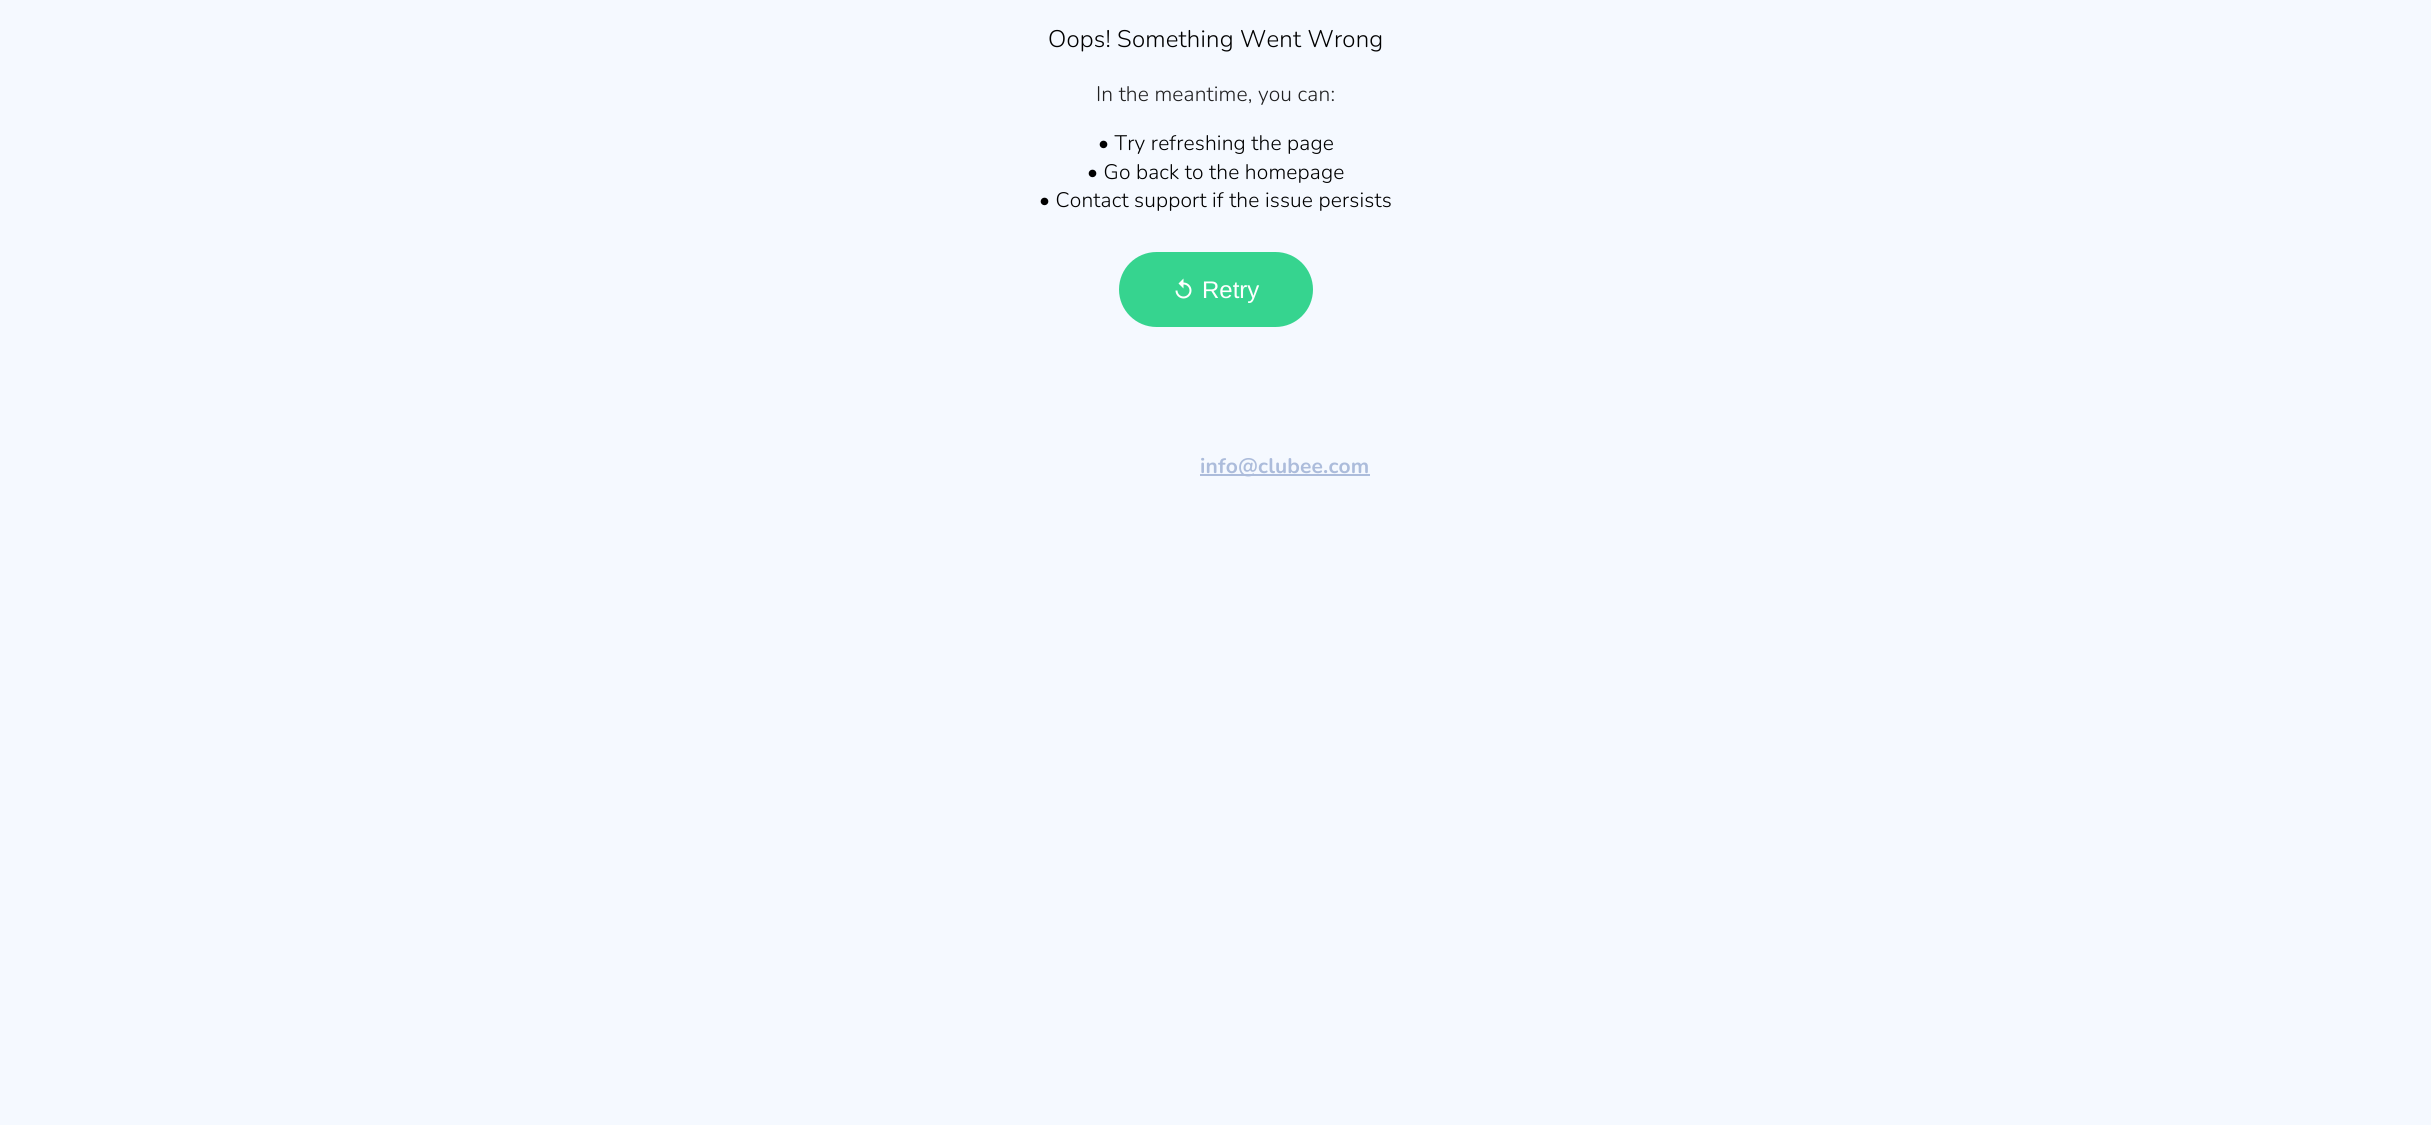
import math
import cairo

surface = cairo.ImageSurface(cairo.FORMAT_RGB24, 2431, 1125)
ctx = cairo.Context(surface)
options = cairo.FontOptions()
options.set_hint_metrics(cairo.HINT_METRICS_OFF)
options.set_hint_style(cairo.HINT_STYLE_NONE)
ctx.set_font_options(options)
ctx.set_miter_limit(4)


def set_color(code):
    ctx.set_source_rgb(*(v / 255 for v in bytes.fromhex(code[-6:])))


def draw_text(x, y, s, family, size, color, bold=False, italic=False):
    ctx.select_font_face(family, cairo.FONT_SLANT_ITALIC if italic else cairo.FONT_SLANT_NORMAL, cairo.FONT_WEIGHT_BOLD if bold else cairo.FONT_WEIGHT_NORMAL)
    ctx.set_font_size(size)
    set_color(color)
    ctx.move_to(x, y)
    ctx.show_text(s)


def draw_spaced(x, y, s, letter, word):
    ctx.move_to(x, y)
    for ch in s:
        ctx.show_text(ch)
        ctx.rel_move_to(letter + word * (ch == ' '), 0)


def fill_rect(x, y, w, h, color):
    set_color(color)
    ctx.rectangle(x, y, w, h)
    ctx.fill()


def rounded_rect(x, y, w, h, r):
    ctx.new_sub_path()
    for i, (u, v) in enumerate([(x + w - r, y + h - r), (x + r, y + h - r), (x + r, y + r), (x + w - r, y + r)]):
        ctx.arc(u, v, r, i * math.pi / 2, (i + 1) * math.pi / 2)
    ctx.close_path()


def draw_image(path, x, y, w, h):
    ctx.save()
    ctx.set_source_surface(cairo.ImageSurface.create_from_png(path), x, y)
    ctx.rectangle(x, y, w, h)
    ctx.fill()
    ctx.restore()


set_color("#f5f9ff")
ctx.paint()
ctx.select_font_face("Nunito Light")
ctx.set_font_size(24)
set_color("#000000")
draw_spaced(1048, 47, "Oops! Something Went Wrong", 0.2, 0)
ctx.set_font_size(21)
set_color("#202021")
draw_spaced(1096, 101, "In the meantime, you can:", 0.15, 0)
set_color("#000000")
draw_spaced(1098, 150, "• Try refreshing the page", 0.15, 0)
draw_spaced(1087, 179, "• Go back to the homepage", 0.15, 0)
draw_spaced(1039, 207, "• Contact support if the issue persists", 0.15, 0)
set_color("#36d48f")
rounded_rect(1119, 252, 194, 75, 37.5)
ctx.fill()
draw_image("assets/img1.png", 1175, 278, 17, 21)
draw_text(1202, 298, "Retry", "Liberation Sans", 24, "#ffffff")
fill_rect(1200, 474, 170, 2, "#acbcdb")
ctx.select_font_face("Nunito", cairo.FONT_SLANT_NORMAL, cairo.FONT_WEIGHT_BOLD)
ctx.set_font_size(21)
draw_spaced(1200, 473, "info@clubee.com", 0.15, 0)
surface.write_to_png("output.png")
